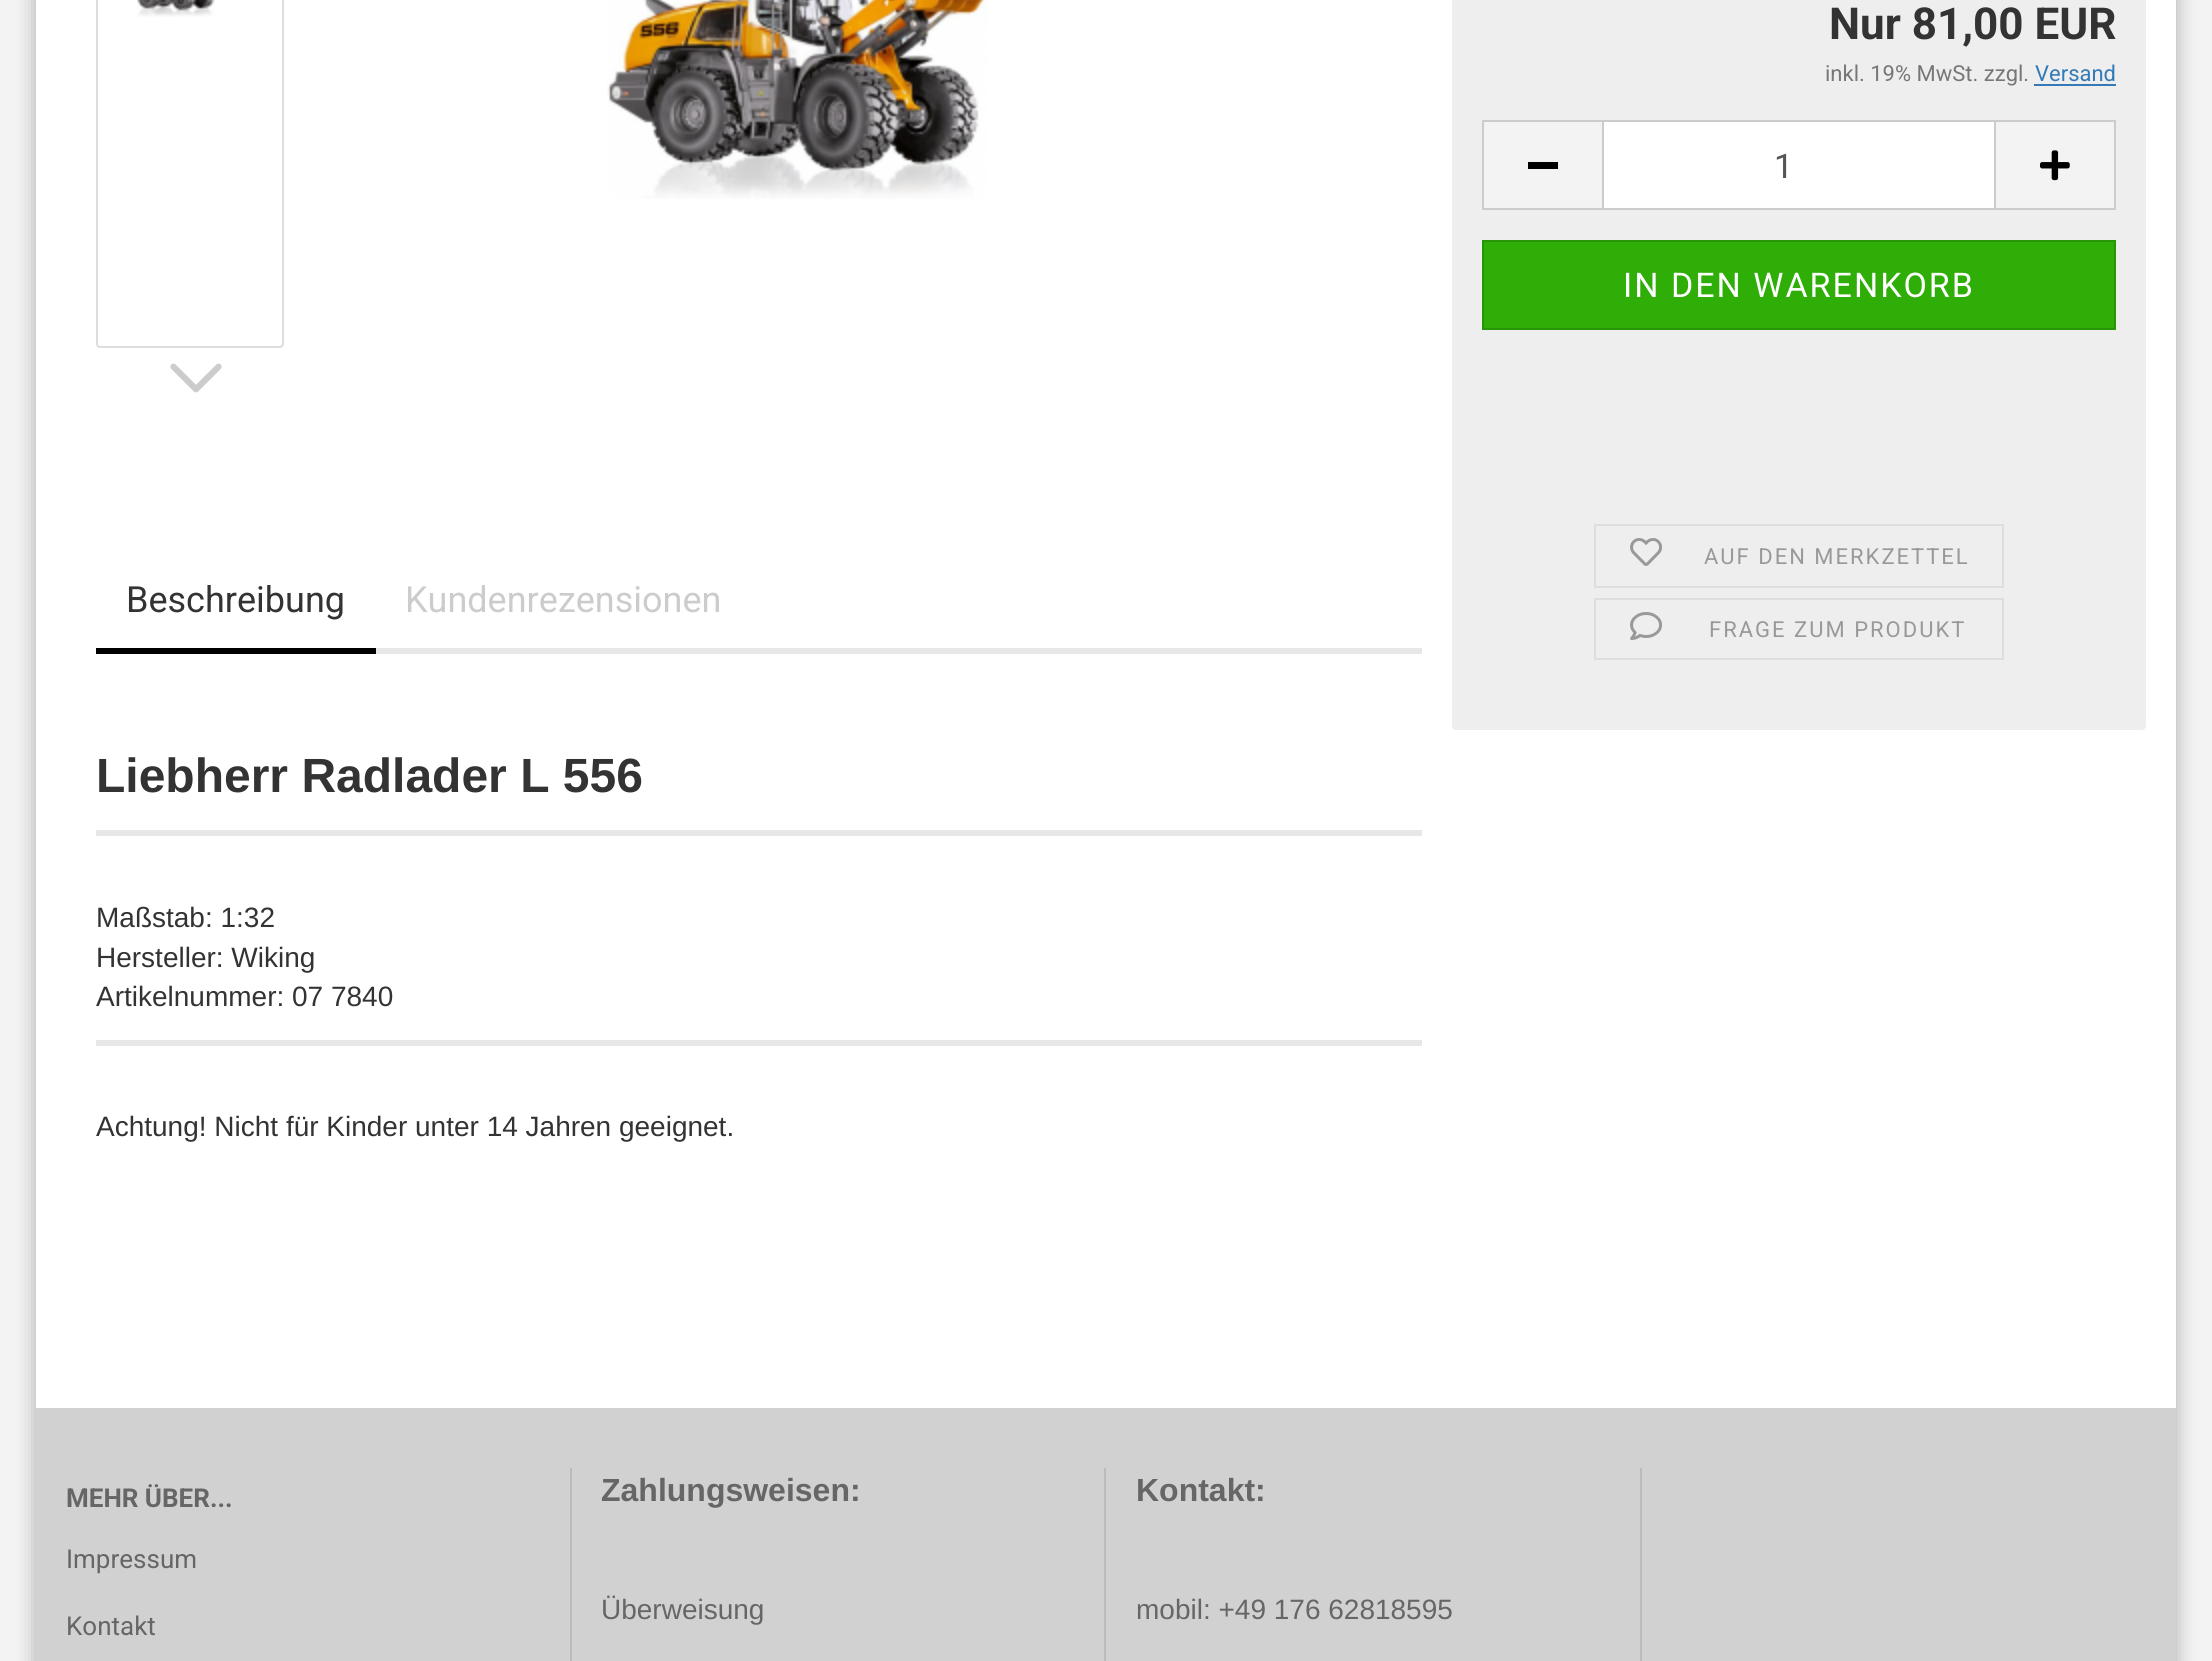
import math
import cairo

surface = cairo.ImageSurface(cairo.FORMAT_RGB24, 2212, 1661)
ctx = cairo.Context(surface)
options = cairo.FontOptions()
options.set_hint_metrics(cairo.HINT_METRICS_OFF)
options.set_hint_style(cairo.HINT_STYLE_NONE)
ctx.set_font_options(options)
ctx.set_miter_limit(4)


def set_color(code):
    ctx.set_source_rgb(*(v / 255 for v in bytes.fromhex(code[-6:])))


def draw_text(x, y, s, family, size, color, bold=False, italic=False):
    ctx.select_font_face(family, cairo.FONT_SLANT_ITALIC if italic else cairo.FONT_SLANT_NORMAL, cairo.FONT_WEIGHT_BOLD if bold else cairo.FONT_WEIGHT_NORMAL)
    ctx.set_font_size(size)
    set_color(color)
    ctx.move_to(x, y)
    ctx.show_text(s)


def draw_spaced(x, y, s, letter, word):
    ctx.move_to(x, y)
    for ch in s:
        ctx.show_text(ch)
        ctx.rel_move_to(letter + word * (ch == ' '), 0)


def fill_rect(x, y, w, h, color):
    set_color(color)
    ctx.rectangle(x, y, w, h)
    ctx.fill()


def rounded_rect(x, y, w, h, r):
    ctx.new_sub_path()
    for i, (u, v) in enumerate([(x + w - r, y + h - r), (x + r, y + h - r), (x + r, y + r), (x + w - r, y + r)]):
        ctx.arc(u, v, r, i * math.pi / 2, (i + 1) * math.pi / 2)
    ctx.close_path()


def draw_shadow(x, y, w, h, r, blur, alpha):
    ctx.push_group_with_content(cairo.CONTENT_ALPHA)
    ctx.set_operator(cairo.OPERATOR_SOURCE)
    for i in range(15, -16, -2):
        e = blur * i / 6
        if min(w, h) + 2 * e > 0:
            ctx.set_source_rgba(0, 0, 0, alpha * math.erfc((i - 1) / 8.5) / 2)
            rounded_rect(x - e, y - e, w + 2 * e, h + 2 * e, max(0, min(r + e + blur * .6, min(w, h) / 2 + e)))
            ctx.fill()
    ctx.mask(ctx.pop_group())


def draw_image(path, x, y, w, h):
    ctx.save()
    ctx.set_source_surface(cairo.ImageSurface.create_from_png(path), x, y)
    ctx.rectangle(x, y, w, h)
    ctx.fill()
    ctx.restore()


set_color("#f3f3f3")
ctx.paint()
set_color("#000000")
draw_shadow(36, -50, 2140, 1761, 20, 10, 0.3)
fill_rect(36, 0, 2140, 1408, "#ffffff")
rounded_rect(97, -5, 186, 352, 3)
set_color("#dddddd")
ctx.stroke()
draw_image("assets/img1.png", 137, 0, 78, 17)
draw_image("assets/img2.png", 170, 363, 52, 30)
draw_image("assets/img3.png", 607, 0, 381, 199)
set_color("#eeeeee")
rounded_rect(1452, -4, 694, 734, 4)
ctx.fill()
draw_text(1829, 39, "Nur 81,00 EUR", "Roboto", 44, "#333333", bold=True)
draw_text(1825, 81, "inkl. 19% MwSt. zzgl.", "Roboto", 22, "#777777")
draw_text(2035, 81, "Versand", "Roboto", 22, "#337ab7")
fill_rect(2034, 84, 82, 2, "#337ab7")
fill_rect(1484, 122, 118, 86, "#f3f3f3")
fill_rect(1482, 120, 120, 2, "#cccccc")
fill_rect(1482, 208, 120, 2, "#cccccc")
fill_rect(1482, 120, 2, 90, "#cccccc")
fill_rect(1528, 162, 30, 7, "#000000")
set_color("#ffffff")
ctx.rectangle(1603, 121, 392, 88)
ctx.fill_preserve()
set_color("#cccccc")
ctx.stroke()
draw_text(1774, 178, "1", "Roboto", 34, "#555555")
fill_rect(1996, 122, 118, 86, "#f3f3f3")
fill_rect(1996, 120, 120, 2, "#cccccc")
fill_rect(2114, 120, 2, 90, "#cccccc")
fill_rect(1996, 208, 120, 2, "#cccccc")
draw_image("assets/img4.png", 2040, 150, 30, 31)
set_color("#2eae06")
ctx.rectangle(1483, 241, 632, 88)
ctx.fill_preserve()
set_color("#279505")
ctx.stroke()
set_color("#ffffff")
draw_spaced(1623, 297, "IN DEN WARENKORB", 2, 0)
ctx.rectangle(1595, 525, 408, 62)
set_color("#dddddd")
ctx.stroke()
draw_image("assets/img5.png", 1630, 538, 33, 28)
ctx.set_font_size(22)
set_color("#999999")
draw_spaced(1704, 564, "AUF DEN MERKZETTEL", 2, 0)
ctx.rectangle(1595, 599, 408, 60)
set_color("#dddddd")
ctx.stroke()
draw_image("assets/img6.png", 1630, 612, 32, 28)
set_color("#999999")
draw_spaced(1709, 637, "FRAGE ZUM PRODUKT", 2, 0)
fill_rect(376, 648, 1046, 6, "#e7e7e7")
fill_rect(96, 648, 280, 6, "#000000")
draw_text(126, 612, "Beschreibung", "Roboto", 36, "#333333")
draw_text(405, 612, "Kundenrezensionen", "Roboto", 36, "#cccccc")
fill_rect(96, 830, 1326, 6, "#e7e7e7")
draw_text(96, 792, "Liebherr Radlader L 556", "Liberation Sans", 48, "#333333", bold=True)
fill_rect(96, 1040, 1326, 6, "#e7e7e7")
draw_text(96, 927, "Maßstab: 1:32", "Liberation Sans", 28, "#333333")
draw_text(96, 967, "Hersteller: Wiking", "Liberation Sans", 28, "#333333")
draw_text(96, 1006, "Artikelnummer: 07 7840", "Liberation Sans", 28, "#333333")
draw_text(96, 1136, "Achtung! Nicht für Kinder unter 14 Jahren geeignet.", "Liberation Sans", 28, "#333333")
fill_rect(36, 1408, 2140, 253, "#d1d1d1")
fill_rect(570, 1468, 2, 193, "#bbbbbb")
draw_text(66, 1507, "MEHR ÜBER...", "Roboto", 26, "#666666", bold=True)
draw_text(66, 1568, "Impressum", "Roboto", 26, "#666666")
draw_text(66, 1635, "Kontakt", "Roboto", 26, "#666666")
fill_rect(1104, 1468, 2, 193, "#bbbbbb")
draw_text(601, 1501, "Zahlungsweisen:", "Liberation Sans", 32, "#666666", bold=True)
draw_text(601, 1619, "Überweisung", "Liberation Sans", 28, "#666666")
fill_rect(1640, 1468, 2, 193, "#bbbbbb")
draw_text(1136, 1501, "Kontakt:", "Liberation Sans", 32, "#666666", bold=True)
draw_text(1136, 1619, "mobil: +49 176 62818595", "Liberation Sans", 28, "#666666")
surface.write_to_png("output.png")
